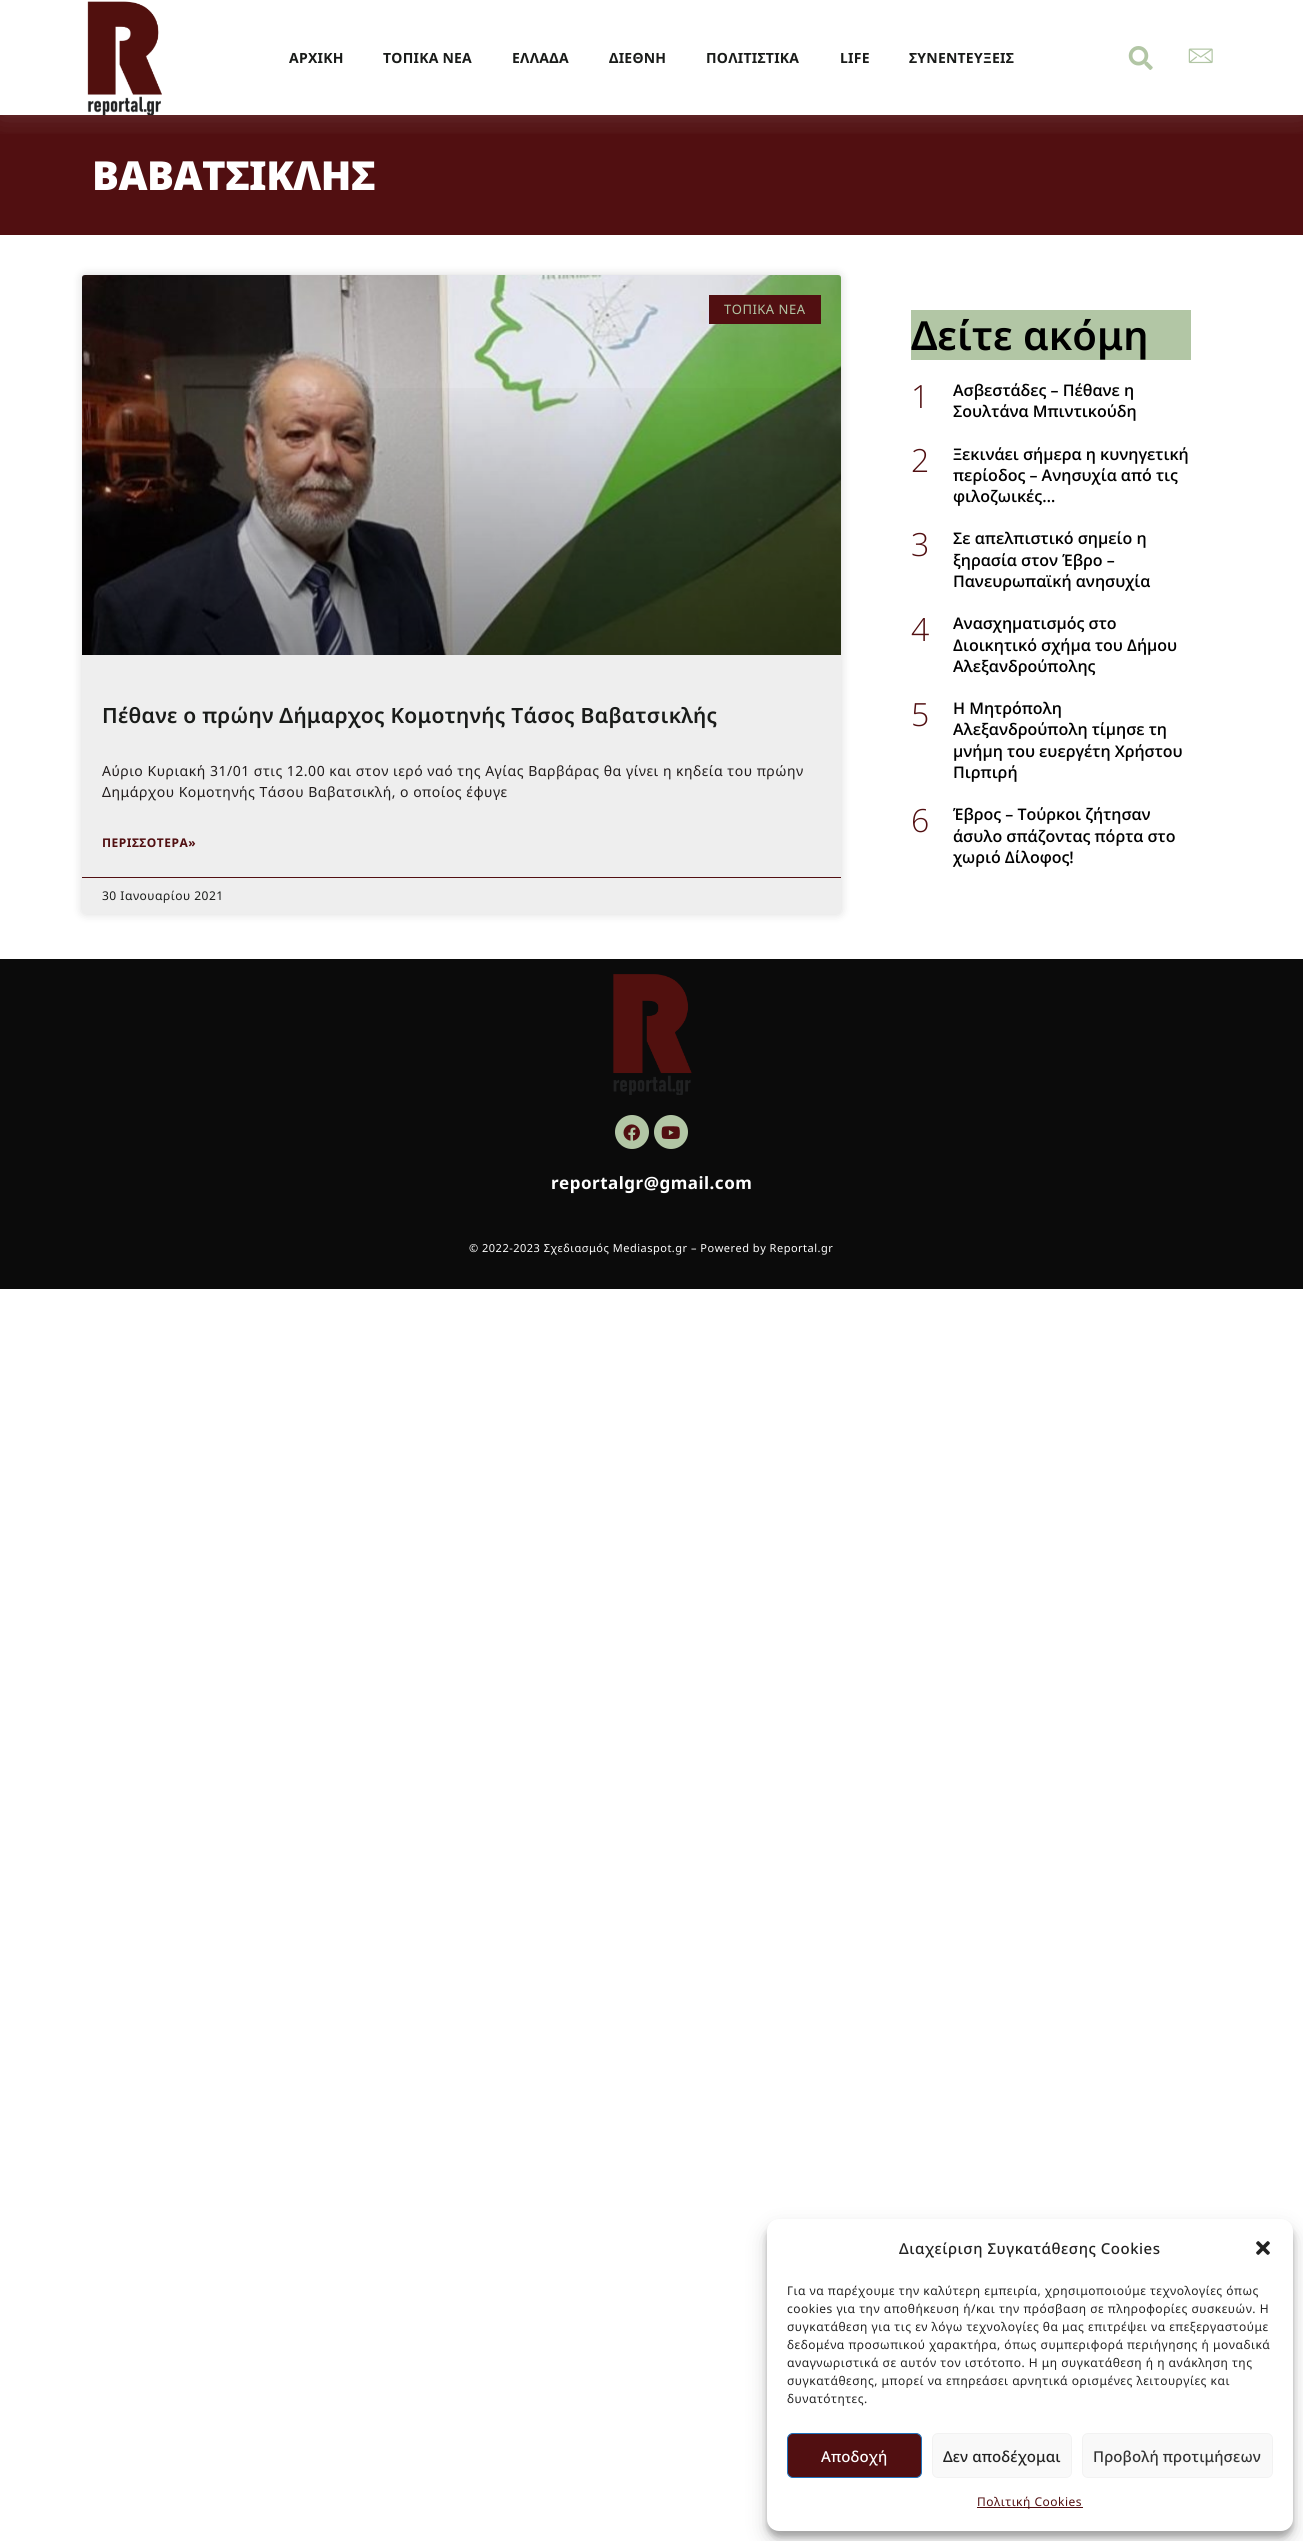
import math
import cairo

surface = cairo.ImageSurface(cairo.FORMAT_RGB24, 1303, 2541)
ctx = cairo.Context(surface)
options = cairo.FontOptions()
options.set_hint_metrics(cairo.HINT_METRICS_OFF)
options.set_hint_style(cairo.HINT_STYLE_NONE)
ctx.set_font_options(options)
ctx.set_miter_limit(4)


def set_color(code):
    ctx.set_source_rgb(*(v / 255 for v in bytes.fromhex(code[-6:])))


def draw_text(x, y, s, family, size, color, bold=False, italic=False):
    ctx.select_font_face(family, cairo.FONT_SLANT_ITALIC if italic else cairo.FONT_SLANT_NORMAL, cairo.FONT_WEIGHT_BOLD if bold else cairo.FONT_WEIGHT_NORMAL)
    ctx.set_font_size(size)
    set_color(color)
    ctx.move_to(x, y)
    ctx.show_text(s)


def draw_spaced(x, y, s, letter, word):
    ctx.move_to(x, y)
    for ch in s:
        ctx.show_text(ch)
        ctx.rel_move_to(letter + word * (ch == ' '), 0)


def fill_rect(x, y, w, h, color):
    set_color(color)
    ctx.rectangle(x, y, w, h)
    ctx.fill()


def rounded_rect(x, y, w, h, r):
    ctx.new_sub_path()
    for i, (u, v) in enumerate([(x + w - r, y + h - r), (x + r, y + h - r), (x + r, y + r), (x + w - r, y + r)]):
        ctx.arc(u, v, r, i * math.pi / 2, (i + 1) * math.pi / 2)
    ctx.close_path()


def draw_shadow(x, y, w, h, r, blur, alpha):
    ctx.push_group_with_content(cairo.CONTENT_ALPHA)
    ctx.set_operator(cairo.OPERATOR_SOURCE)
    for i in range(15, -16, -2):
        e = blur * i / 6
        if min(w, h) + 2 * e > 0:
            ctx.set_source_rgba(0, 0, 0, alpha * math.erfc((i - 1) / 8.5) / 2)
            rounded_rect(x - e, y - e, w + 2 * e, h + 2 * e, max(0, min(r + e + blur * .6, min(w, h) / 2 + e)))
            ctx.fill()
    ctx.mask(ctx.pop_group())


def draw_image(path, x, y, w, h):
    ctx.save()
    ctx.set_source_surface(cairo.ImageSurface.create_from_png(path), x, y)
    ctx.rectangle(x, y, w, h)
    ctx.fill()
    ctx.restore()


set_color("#ffffff")
ctx.paint()
fill_rect(0, 115, 1303, 120, "#510f11")
ctx.save()
ctx.rectangle(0, 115, 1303, 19)
ctx.clip()
set_color("#d0d0d0")
draw_shadow(0, 0, 1303, 115, 0, 15, 0.2)
ctx.restore()
draw_image("assets/img1.png", 87, 1, 75, 115)
ctx.select_font_face("Noto Sans", cairo.FONT_SLANT_NORMAL, cairo.FONT_WEIGHT_BOLD)
ctx.set_font_size(14)
set_color("#191b19")
draw_spaced(289, 63, "ΑΡΧΙΚΗ", 0.25, 0)
draw_spaced(383, 63, "ΤΟΠΙΚΑ ΝΕΑ", 0.25, 0)
draw_spaced(512, 63, "ΕΛΛΑΔΑ", 0.25, 0)
draw_spaced(609, 63, "ΔΙΕΘΝΗ", 0.25, 0)
draw_spaced(706, 63, "ΠΟΛΙΤΙΣΤΙΚΑ", 0.25, 0)
draw_spaced(840, 63, "LIFE", 0.25, 0)
draw_spaced(909, 63, "ΣΥΝΕΝΤΕΥΞΕΙΣ", 0.25, 0)
draw_image("assets/img2.png", 1128, 46, 25, 24)
draw_image("assets/img3.png", 1188, 48, 25, 16)
ctx.select_font_face("Noto Sans Black")
ctx.set_font_size(40)
set_color("#ffffff")
draw_spaced(92, 190, "ΒΑΒΑΤΣΙΚΛΗΣ", -0.5, 0)
set_color("#000000")
draw_shadow(82, 275, 759, 639, 3, 5, 0.15)
set_color("#eeeeee")
rounded_rect(82, 275, 759, 639, 3)
ctx.fill()
draw_image("assets/img4.png", 82, 275, 759, 380)
gradient = cairo.LinearGradient(462, 655, 462, 275)
gradient.add_color_stop_rgba(0, 0, 0, 0, 0.35)
gradient.add_color_stop_rgba(0.75, 0, 0, 0, 0)
ctx.set_source(gradient)
ctx.rectangle(82, 388, 759, 267)
ctx.fill()
fill_rect(709, 295, 112, 29, "#510f11")
ctx.select_font_face("Noto Sans")
ctx.set_font_size(13)
set_color("#b2c6a5")
draw_spaced(724, 314, "ΤΟΠΙΚΑ ΝΕΑ", 0.5, 0)
ctx.select_font_face("Noto Sans SemiBold")
ctx.set_font_size(21)
set_color("#191b19")
draw_spaced(102, 723, "Πέθανε ο πρώην Δήμαρχος Κομοτηνής Τάσος Βαβατσικλής", 0.25, 0)
ctx.select_font_face("Noto Sans")
ctx.set_font_size(14)
set_color("#211c1c")
draw_spaced(102, 776, "Αύριο Κυριακή 31/01 στις 12.00 και στον ιερό ναό της Αγίας Βαρβάρας θα γίνει η κηδεία του πρώην", 0.5, 0)
draw_spaced(102, 797, "Δημάρχου Κομοτηνής Τάσου Βαβατσικλή, ο οποίος έφυγε", 0.5, 0)
ctx.select_font_face("Noto Sans", cairo.FONT_SLANT_NORMAL, cairo.FONT_WEIGHT_BOLD)
ctx.set_font_size(12)
set_color("#510f11")
draw_spaced(102, 847, "ΠΕΡΙΣΣΟΤΕΡΑ»", 0.5, 0)
fill_rect(82, 877, 759, 1, "#510f11")
ctx.select_font_face("Noto Sans")
set_color("#191b19")
draw_spaced(102, 900, "30 Ιανουαρίου 2021", 0.5, 0)
fill_rect(911, 310, 280, 50, "#b2c6a5")
draw_text(911, 350, "Δείτε ακόμη", "Noto Sans SemiBold", 40, "#000000")
ctx.select_font_face("Open Sans Light")
ctx.set_font_size(32)
set_color("#510f11")
draw_spaced(911, 408, "1", 0.5, 0)
draw_text(953, 396, "Ασβεστάδες – Πέθανε η", "Open Sans SemiBold", 16, "#000000")
draw_text(953, 417, "Σουλτάνα Μπιντικούδη", "Open Sans SemiBold", 16, "#000000")
ctx.select_font_face("Open Sans Light")
ctx.set_font_size(32)
set_color("#510f11")
draw_spaced(911, 472, "2", 0.5, 0)
draw_text(953, 460, "Ξεκινάει σήμερα η κυνηγετική", "Open Sans SemiBold", 16, "#000000")
draw_text(953, 481, "περίοδος – Ανησυχία από τις", "Open Sans SemiBold", 16, "#000000")
draw_text(953, 502, "φιλοζωικές…", "Open Sans SemiBold", 16, "#000000")
ctx.select_font_face("Open Sans Light")
ctx.set_font_size(32)
set_color("#510f11")
draw_spaced(911, 556, "3", 0.5, 0)
draw_text(953, 544, "Σε απελπιστικό σημείο η", "Open Sans SemiBold", 16, "#000000")
draw_text(953, 566, "ξηρασία στον Έβρο –", "Open Sans SemiBold", 16, "#000000")
draw_text(953, 587, "Πανευρωπαϊκή ανησυχία", "Open Sans SemiBold", 16, "#000000")
ctx.select_font_face("Open Sans Light")
ctx.set_font_size(32)
set_color("#510f11")
draw_spaced(911, 641, "4", 0.5, 0)
draw_text(953, 629, "Ανασχηματισμός στο", "Open Sans SemiBold", 16, "#000000")
draw_text(953, 651, "Διοικητικό σχήμα του Δήμου", "Open Sans SemiBold", 16, "#000000")
draw_text(953, 672, "Αλεξανδρούπολης", "Open Sans SemiBold", 16, "#000000")
ctx.select_font_face("Open Sans Light")
ctx.set_font_size(32)
set_color("#510f11")
draw_spaced(911, 726, "5", 0.5, 0)
draw_text(953, 714, "Η Μητρόπολη", "Open Sans SemiBold", 16, "#000000")
draw_text(953, 735, "Αλεξανδρούπολη τίμησε τη", "Open Sans SemiBold", 16, "#000000")
draw_text(953, 757, "μνήμη του ευεργέτη Χρήστου", "Open Sans SemiBold", 16, "#000000")
draw_text(953, 778, "Πιρπιρή", "Open Sans SemiBold", 16, "#000000")
ctx.select_font_face("Open Sans Light")
ctx.set_font_size(32)
set_color("#510f11")
draw_spaced(911, 832, "6", 0.5, 0)
draw_text(953, 820, "Έβρος – Τούρκοι ζήτησαν", "Open Sans SemiBold", 16, "#000000")
draw_text(953, 842, "άσυλο σπάζοντας πόρτα στο", "Open Sans SemiBold", 16, "#000000")
draw_text(953, 863, "χωριό Δίλοφος!", "Open Sans SemiBold", 16, "#000000")
fill_rect(0, 959, 1303, 330, "#0b0b0b")
draw_image("assets/img5.png", 613, 974, 79, 121)
set_color("#b2c6a5")
ctx.arc(632, 1132, 17, 0, 2 * math.pi)
ctx.fill()
draw_image("assets/img6.png", 623, 1124, 17, 17)
ctx.arc(671, 1132, 17, 0, 2 * math.pi)
ctx.fill()
draw_image("assets/img7.png", 661, 1126, 19, 13)
ctx.select_font_face("Noto Sans", cairo.FONT_SLANT_NORMAL, cairo.FONT_WEIGHT_BOLD)
ctx.set_font_size(17)
set_color("#ffffff")
draw_spaced(551, 1189, "reportalgr@gmail.com", 0.5, 0)
ctx.select_font_face("Noto Sans")
ctx.set_font_size(11)
draw_spaced(469, 1252, "© 2022-2023 Σχεδιασμός Mediaspot.gr – Powered by Reportal.gr", 0.5, 0)
set_color("#000000")
draw_shadow(767, 2225, 526, 312, 12, 3, 0.23)
draw_shadow(767, 2229, 526, 312, 12, 10, 0.19)
set_color("#ffffff")
rounded_rect(767, 2219, 526, 312, 12)
ctx.fill()
ctx.select_font_face("Noto Sans Medium")
ctx.set_font_size(15)
set_color("#222222")
draw_spaced(899, 2254, "Διαχείριση Συγκατάθεσης Cookies", 0.5, 0)
draw_image("assets/img8.png", 1256, 2241, 14, 14)
ctx.select_font_face("Noto Sans")
ctx.set_font_size(12)
draw_spaced(787, 2295, "Για να παρέχουμε την καλύτερη εμπειρία, χρησιμοποιούμε τεχνολογίες όπως", 0.5, 0)
draw_spaced(787, 2313, "cookies για την αποθήκευση ή/και την πρόσβαση σε πληροφορίες συσκευών. Η", 0.5, 0)
draw_spaced(787, 2331, "συγκατάθεση για τις εν λόγω τεχνολογίες θα μας επιτρέψει να επεξεργαστούμε", 0.5, 0)
draw_spaced(787, 2349, "δεδομένα προσωπικού χαρακτήρα, όπως συμπεριφορά περιήγησης ή μοναδικά", 0.5, 0)
draw_spaced(787, 2367, "αναγνωριστικά σε αυτόν τον ιστότοπο. Η μη συγκατάθεση ή η ανάκληση της", 0.5, 0)
draw_spaced(787, 2385, "συγκατάθεσης, μπορεί να επηρεάσει αρνητικά ορισμένες λειτουργίες και", 0.5, 0)
draw_spaced(787, 2403, "δυνατότητες.", 0.5, 0)
set_color("#510f11")
rounded_rect(787.5, 2433.5, 134, 44, 5.5)
ctx.fill_preserve()
set_color("#1e73be")
ctx.set_line_width(1)
ctx.stroke()
ctx.select_font_face("Noto Sans Medium")
ctx.set_font_size(15)
set_color("#ffffff")
draw_spaced(821, 2462, "Αποδοχή", 0.1, 0)
set_color("#f9f9f9")
rounded_rect(932.5, 2433.5, 139, 44, 5.5)
ctx.fill_preserve()
set_color("#f2f2f2")
ctx.stroke()
set_color("#222222")
draw_spaced(943, 2462, "Δεν αποδέχομαι", 0.1, 0)
set_color("#f9f9f9")
rounded_rect(1082.5, 2433.5, 190, 44, 5.5)
ctx.fill_preserve()
set_color("#f2f2f2")
ctx.stroke()
set_color("#333333")
draw_spaced(1093, 2462, "Προβολή προτιμήσεων", 0.1, 0)
fill_rect(977, 2507, 106, 1, "#510f11")
ctx.select_font_face("Noto Sans")
ctx.set_font_size(12)
draw_spaced(977, 2506, "Πολιτική Cookies", 0.5, 0)
surface.write_to_png("output.png")
